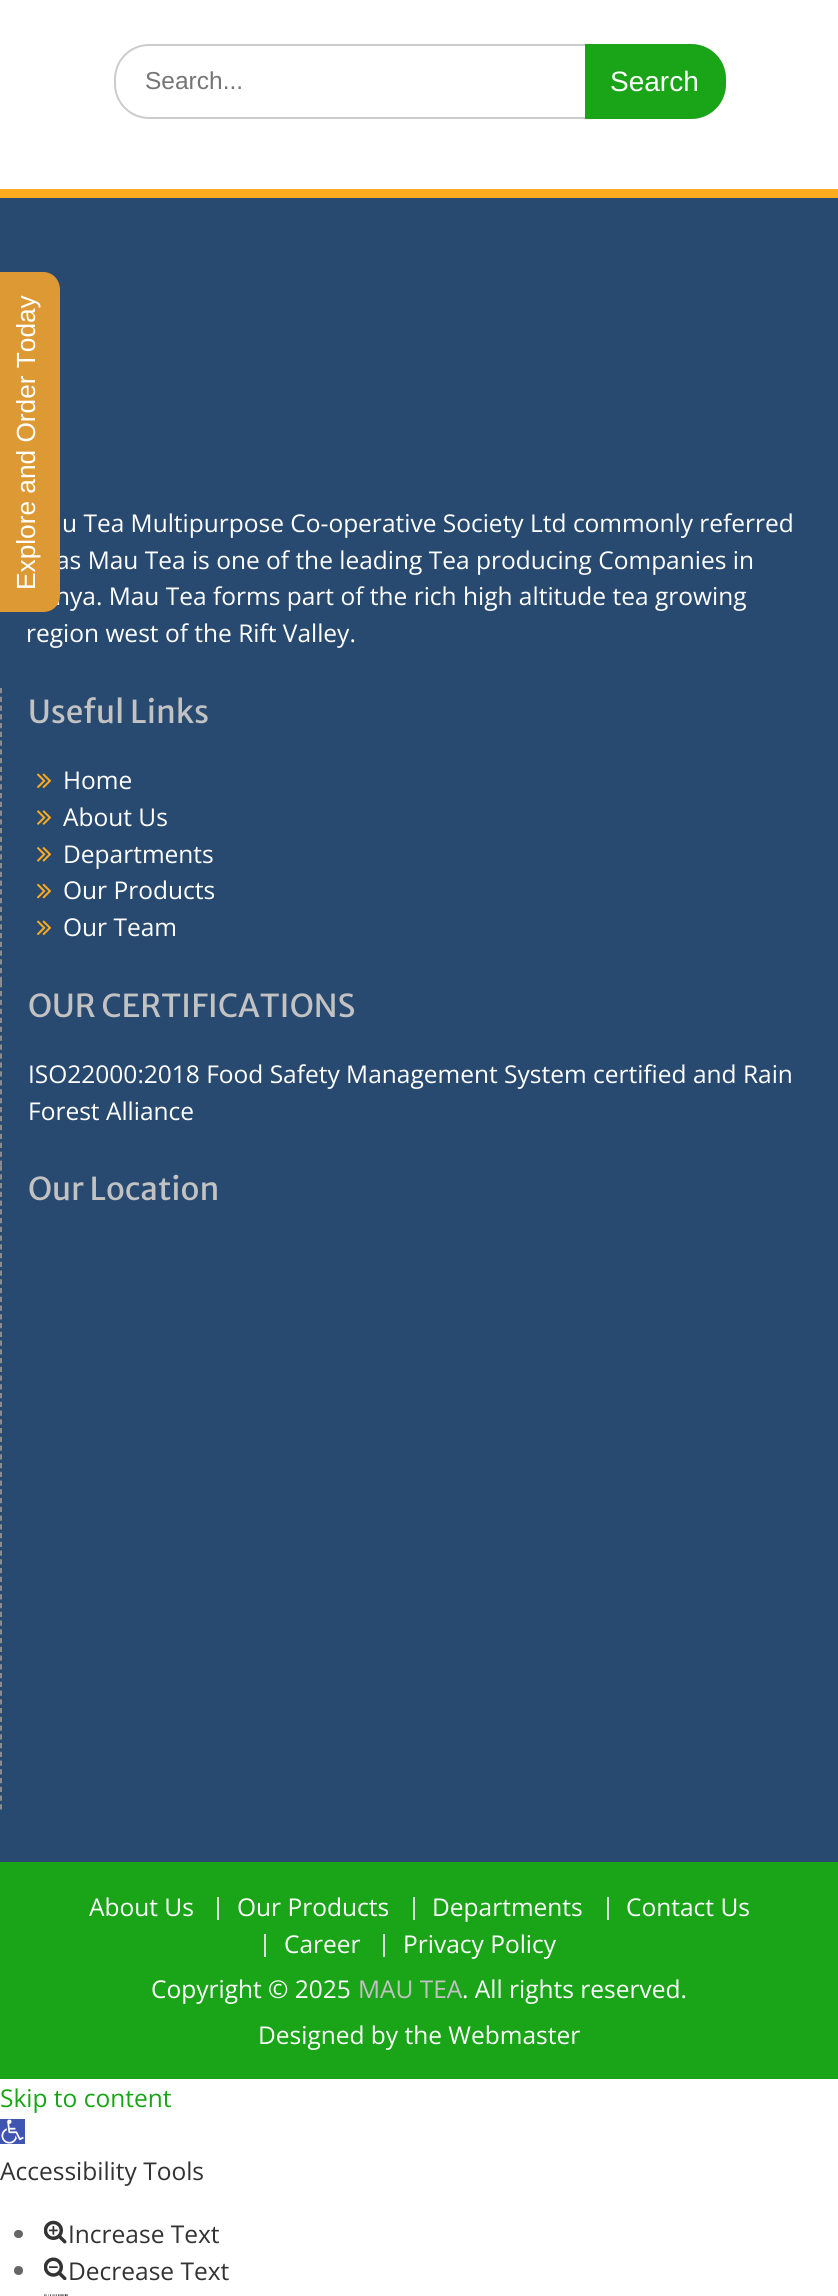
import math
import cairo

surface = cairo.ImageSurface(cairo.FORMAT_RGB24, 838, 2296)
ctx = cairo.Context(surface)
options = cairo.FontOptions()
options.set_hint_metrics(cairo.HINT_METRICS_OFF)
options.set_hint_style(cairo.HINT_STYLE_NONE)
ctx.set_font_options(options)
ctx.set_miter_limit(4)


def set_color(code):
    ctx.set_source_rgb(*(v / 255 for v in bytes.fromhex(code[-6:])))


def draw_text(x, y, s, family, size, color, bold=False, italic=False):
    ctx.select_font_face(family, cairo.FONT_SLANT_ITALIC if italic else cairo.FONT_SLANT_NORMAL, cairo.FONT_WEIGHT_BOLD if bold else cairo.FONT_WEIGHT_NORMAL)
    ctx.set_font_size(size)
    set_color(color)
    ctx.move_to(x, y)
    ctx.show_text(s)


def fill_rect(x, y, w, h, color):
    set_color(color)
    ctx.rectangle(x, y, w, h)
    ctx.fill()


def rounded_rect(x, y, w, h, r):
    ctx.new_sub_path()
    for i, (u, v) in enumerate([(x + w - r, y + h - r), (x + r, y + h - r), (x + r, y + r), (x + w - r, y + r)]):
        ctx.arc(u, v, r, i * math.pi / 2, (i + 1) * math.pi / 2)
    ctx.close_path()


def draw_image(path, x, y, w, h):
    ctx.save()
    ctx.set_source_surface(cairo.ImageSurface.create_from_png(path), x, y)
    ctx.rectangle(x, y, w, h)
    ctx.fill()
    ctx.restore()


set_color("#ffffff")
ctx.paint()
rounded_rect(115, 45, 610, 73, 34)
set_color("#cccccc")
ctx.stroke()
draw_text(145, 89, "Search...", "Liberation Sans", 24.5, "#757575")
set_color("#19a517")
ctx.new_path()
ctx.move_to(585, 44)
ctx.line_to(691, 44)
ctx.curve_to(710.5, 44, 726, 59.5, 726, 79)
ctx.line_to(726, 84)
ctx.curve_to(726, 103.5, 710.5, 119, 691, 119)
ctx.line_to(585, 119)
ctx.close_path()
ctx.fill()
draw_text(610, 91, "Search", "Liberation Sans", 28, "#ffffff")
fill_rect(0, 198, 838, 1664, "#294a70")
fill_rect(0, 189, 838, 9, "#ffab1f")
draw_text(62, 532, "u Tea Multipurpose Co-operative Society Ltd commonly referred", "Open Sans", 24.5, "#ffffff")
draw_text(56, 569, "as Mau Tea is one of the leading Tea producing Companies in", "Open Sans", 24.5, "#ffffff")
draw_text(55, 605, "nya. Mau Tea forms part of the rich high altitude tea growing", "Open Sans", 24.5, "#ffffff")
draw_text(26, 642, "region west of the Rift Valley.", "Open Sans", 24.5, "#ffffff")
ctx.new_path()
ctx.move_to(1, 688)
ctx.line_to(1, 982)
set_color("#939393")
ctx.set_line_width(1.8)
ctx.set_dash([5.25, 3.5])
ctx.stroke()
draw_text(28, 723, "Useful Links", "Merriweather Sans", 31.5, "#c2c2c2")
draw_image("assets/img1.png", 37, 773, 14, 16)
draw_text(63, 789, "Home", "Open Sans", 24.5, "#ffffff")
draw_image("assets/img2.png", 37, 810, 14, 15)
draw_text(63, 826, "About Us", "Open Sans", 24.5, "#ffffff")
draw_image("assets/img3.png", 37, 847, 14, 15)
draw_text(63, 863, "Departments", "Open Sans", 24.5, "#ffffff")
draw_image("assets/img4.png", 37, 883, 14, 16)
draw_text(63, 899, "Our Products", "Open Sans", 24.5, "#ffffff")
draw_image("assets/img1.png", 37, 920, 14, 16)
draw_text(63, 936, "Our Team", "Open Sans", 24.5, "#ffffff")
ctx.new_path()
ctx.move_to(1, 982)
ctx.line_to(1, 1165.5)
set_color("#939393")
ctx.set_dash([5.25, 3.68])
ctx.stroke()
draw_text(28, 1017, "OUR CERTIFICATIONS", "Merriweather Sans", 31.5, "#c2c2c2")
draw_text(28, 1083, "ISO22000:2018 Food Safety Management System certified and Rain", "Open Sans", 24.5, "#ffffff")
draw_text(28, 1120, "Forest Alliance", "Open Sans", 24.5, "#ffffff")
ctx.new_path()
ctx.move_to(1, 1165.5)
ctx.line_to(1, 1809.5)
set_color("#939393")
ctx.set_dash([5.25, 3.5])
ctx.stroke()
draw_text(28, 1200, "Our Location", "Merriweather Sans", 31.5, "#c2c2c2")
fill_rect(0, 1862, 838, 217, "#19a517")
draw_text(89, 1916, "About Us", "Open Sans", 24.5, "#ffffff")
fill_rect(217, 1897, 2, 23, "#dddddd")
draw_text(237, 1916, "Our Products", "Open Sans", 24.5, "#ffffff")
fill_rect(413, 1897, 2, 23, "#dddddd")
draw_text(432, 1916, "Departments", "Open Sans", 24.5, "#ffffff")
fill_rect(607, 1897, 2, 23, "#dddddd")
draw_text(626, 1916, "Contact Us", "Open Sans", 24.5, "#ffffff")
fill_rect(264, 1934, 2, 23, "#dddddd")
draw_text(284, 1953, "Career", "Open Sans", 24.5, "#ffffff")
fill_rect(383, 1934, 2, 23, "#dddddd")
draw_text(403, 1953, "Privacy Policy", "Open Sans", 24.5, "#ffffff")
draw_text(151, 1998, "Copyright © 2025", "Open Sans", 24.5, "#ffffff")
draw_text(358, 1998, "MAU TEA", "Open Sans", 24.5, "#c2c2c2")
draw_text(462, 1998, ". All rights reserved.", "Open Sans", 24.5, "#ffffff")
draw_text(258, 2044, "Designed by the Webmaster", "Open Sans", 24.5, "#ffffff")
set_color("#dd9933")
ctx.new_path()
ctx.move_to(-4, 612)
ctx.line_to(-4, 272)
ctx.line_to(43, 272)
ctx.curve_to(53, 272, 60, 280, 60, 290)
ctx.line_to(60, 595)
ctx.curve_to(60, 605, 53, 612, 43, 612)
ctx.close_path()
ctx.fill()
ctx.save()
ctx.translate(35, 590)
ctx.rotate(-90 * math.pi / 180)
draw_text(0, 0, "Explore and Order Today", "Liberation Sans", 26.25, "#ffffff")
ctx.restore()
draw_text(0, 2107, "Skip to content", "Open Sans", 24.5, "#19a517")
fill_rect(0, 2119, 25, 25, "#4054b2")
draw_image("assets/img5.png", 1, 2119, 23, 25)
draw_text(0, 2180, "Accessibility Tools", "Open Sans", 24.5, "#333333")
set_color("#666666")
rounded_rect(14, 2230, 9, 8, 4)
ctx.fill()
draw_image("assets/img6.png", 44, 2220, 23, 24)
draw_text(68, 2243, "Increase Text", "Open Sans", 24.5, "#333333")
set_color("#666666")
ctx.new_path()
ctx.arc(18.5, 2270.5, 4.5, 0, 2 * math.pi)
ctx.fill()
draw_image("assets/img7.png", 44, 2257, 23, 23)
draw_text(68, 2280, "Decrease Text", "Open Sans", 24.5, "#333333")
draw_image("assets/img8.png", 44, 2294, 24, 2)
surface.write_to_png("output.png")
